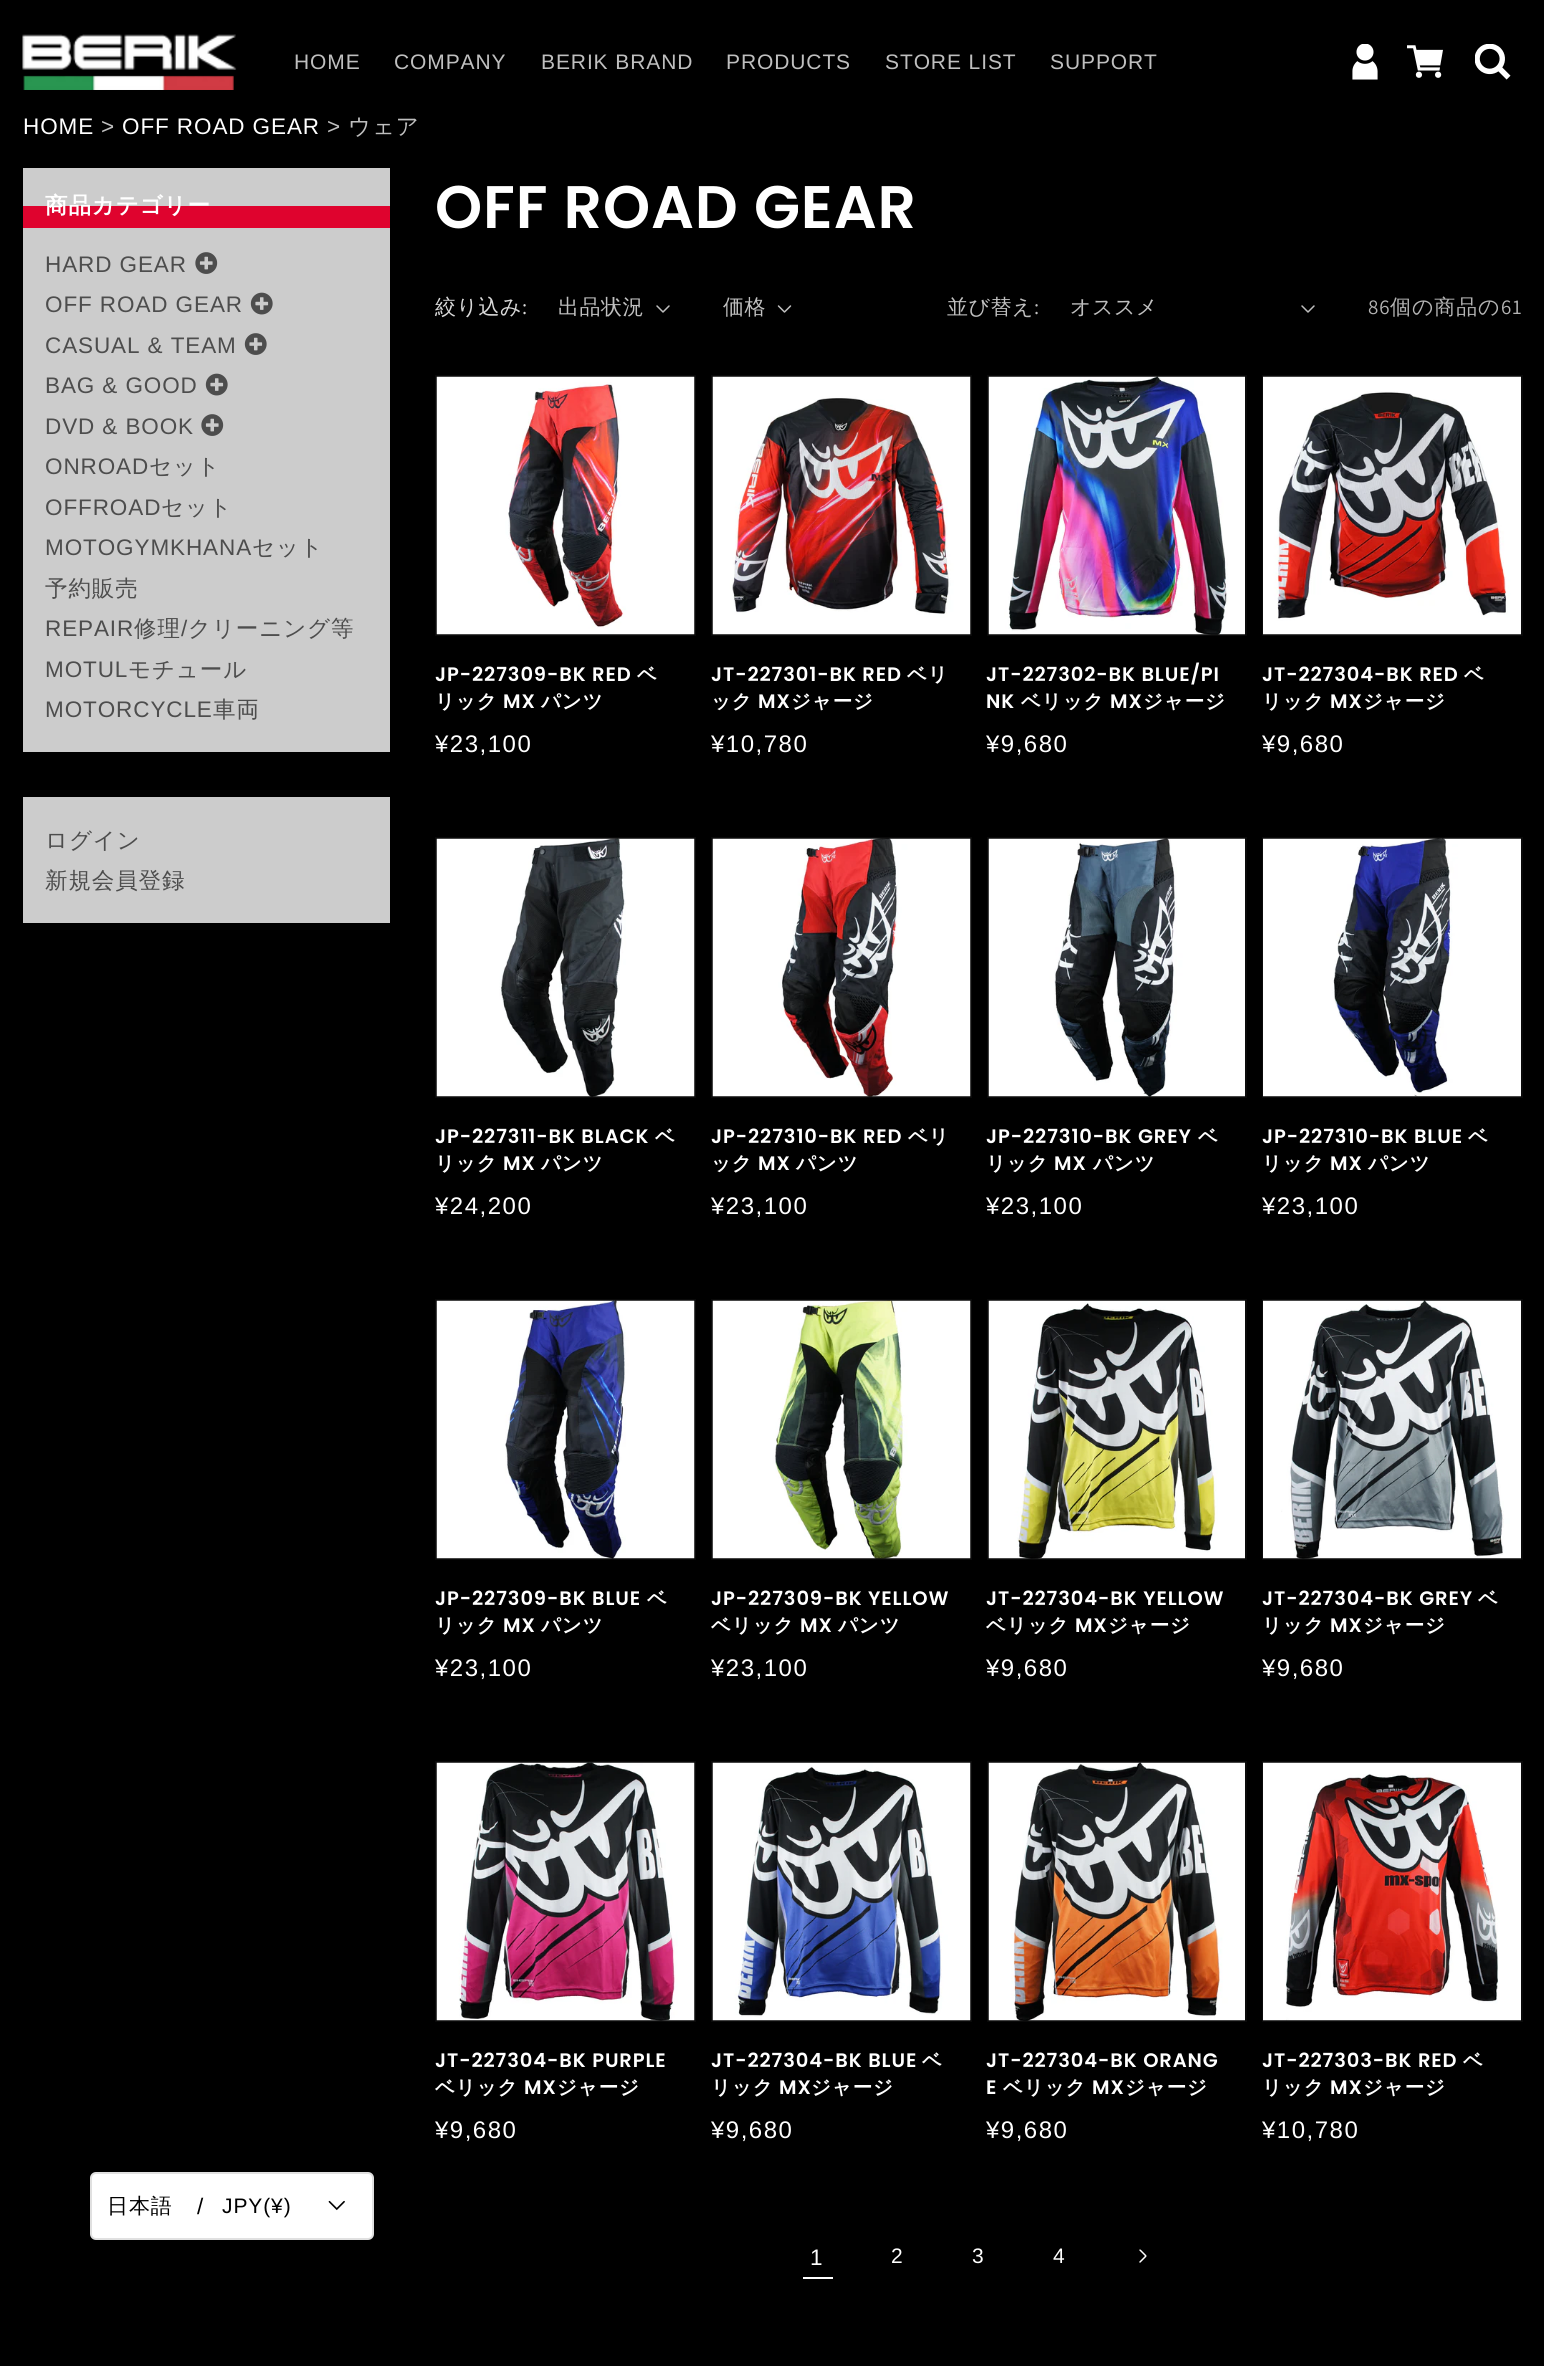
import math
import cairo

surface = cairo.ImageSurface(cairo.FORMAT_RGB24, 1544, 2366)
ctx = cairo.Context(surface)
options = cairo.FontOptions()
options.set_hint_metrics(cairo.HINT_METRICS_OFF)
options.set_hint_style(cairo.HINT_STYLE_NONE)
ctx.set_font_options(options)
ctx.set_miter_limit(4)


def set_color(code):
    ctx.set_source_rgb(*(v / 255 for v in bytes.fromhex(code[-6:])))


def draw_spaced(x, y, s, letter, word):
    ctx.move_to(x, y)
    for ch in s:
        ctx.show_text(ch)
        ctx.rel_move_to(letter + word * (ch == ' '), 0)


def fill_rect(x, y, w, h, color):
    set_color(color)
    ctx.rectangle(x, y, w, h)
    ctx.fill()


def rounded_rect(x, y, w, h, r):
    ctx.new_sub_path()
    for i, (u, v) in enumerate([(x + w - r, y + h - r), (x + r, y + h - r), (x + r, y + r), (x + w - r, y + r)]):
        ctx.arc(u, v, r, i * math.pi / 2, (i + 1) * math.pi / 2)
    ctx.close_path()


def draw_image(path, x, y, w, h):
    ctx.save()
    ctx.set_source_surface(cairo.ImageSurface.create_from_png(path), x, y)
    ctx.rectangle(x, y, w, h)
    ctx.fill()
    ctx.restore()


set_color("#000000")
ctx.paint()
draw_image("assets/img1.png", 22, 34, 215, 56)
ctx.select_font_face("Liberation Sans")
ctx.set_font_size(21)
set_color("#bfbfbf")
draw_spaced(294, 69, "HOME", 0.9, 0)
draw_spaced(394, 69, "COMPANY", 0.9, 0)
draw_spaced(541, 69, "BERIK BRAND", 0.9, 0)
draw_spaced(726, 69, "PRODUCTS", 0.9, 0)
draw_spaced(885, 69, "STORE LIST", 0.9, 0)
draw_spaced(1050, 69, "SUPPORT", 0.9, 0)
draw_image("assets/img2.png", 1352, 44, 26, 36)
draw_image("assets/img3.png", 1407, 45, 36, 33)
draw_image("assets/img4.png", 1475, 44, 36, 36)
ctx.set_font_size(22.5)
set_color("#ffffff")
draw_spaced(23, 134, "HOME", 0.9, 0)
set_color("#bfbfbf")
draw_spaced(101, 134, ">", 0.9, 0)
set_color("#ffffff")
draw_spaced(122, 134, "OFF ROAD GEAR", 0.9, 0)
set_color("#bfbfbf")
draw_spaced(327, 134, ">", 0.9, 0)
ctx.select_font_face("WenQuanYi Zen Hei Medium")
draw_spaced(348, 134, "ウェア", 0.9, 0)
fill_rect(23, 168, 367, 584, "#cccccc")
fill_rect(23, 206, 367, 22, "#df032e")
ctx.select_font_face("WenQuanYi Zen Hei", cairo.FONT_SLANT_NORMAL, cairo.FONT_WEIGHT_BOLD)
set_color("#ffffff")
draw_spaced(45, 213, "商品カテゴリー", 0.9, 0)
ctx.select_font_face("Liberation Sans")
set_color("#4d4d4d")
draw_spaced(45, 272, "HARD GEAR", 0.9, 0)
draw_image("assets/img5.png", 195, 252, 23, 22)
draw_spaced(45, 312, "OFF ROAD GEAR", 0.9, 0)
draw_image("assets/img6.png", 250, 292, 23, 23)
draw_spaced(45, 353, "CASUAL & TEAM", 0.9, 0)
draw_image("assets/img7.png", 244, 333, 23, 22)
draw_spaced(45, 393, "BAG & GOOD", 0.9, 0)
draw_image("assets/img6.png", 205, 373, 23, 23)
draw_spaced(45, 434, "DVD & BOOK", 0.9, 0)
draw_image("assets/img5.png", 201, 414, 23, 22)
draw_spaced(45, 474, "ONROAD", 0.9, 0)
ctx.select_font_face("WenQuanYi Zen Hei Medium")
draw_spaced(149, 474, "セット", 0.9, 0)
ctx.select_font_face("Liberation Sans")
draw_spaced(45, 515, "OFFROAD", 0.9, 0)
ctx.select_font_face("WenQuanYi Zen Hei Medium")
draw_spaced(161, 515, "セット", 0.9, 0)
ctx.select_font_face("Liberation Sans")
draw_spaced(45, 555, "MOTOGYMKHANA", 0.9, 0)
ctx.select_font_face("WenQuanYi Zen Hei Medium")
draw_spaced(252, 555, "セット", 0.9, 0)
draw_spaced(45, 596, "予約販売", 0.9, 0)
ctx.select_font_face("Liberation Sans")
draw_spaced(45, 636, "REPAIR", 0.9, 0)
ctx.select_font_face("WenQuanYi Zen Hei Medium")
draw_spaced(134, 636, "修理", 0.9, 0)
ctx.select_font_face("Liberation Sans")
draw_spaced(181, 636, "/", 0.9, 0)
ctx.select_font_face("WenQuanYi Zen Hei Medium")
draw_spaced(188, 636, "クリーニング等", 0.9, 0)
ctx.select_font_face("Liberation Sans")
draw_spaced(45, 677, "MOTUL", 0.9, 0)
ctx.select_font_face("WenQuanYi Zen Hei Medium")
draw_spaced(128, 677, "モチュール", 0.9, 0)
ctx.select_font_face("Liberation Sans")
draw_spaced(45, 717, "MOTORCYCLE", 0.9, 0)
ctx.select_font_face("WenQuanYi Zen Hei Medium")
draw_spaced(213, 717, "車両", 0.9, 0)
fill_rect(23, 797, 367, 126, "#cccccc")
set_color("#4d4d4d")
draw_spaced(45, 848, "ログイン", 0.9, 0)
draw_spaced(45, 888, "新規会員登録", 0.9, 0)
ctx.select_font_face("Poppins SemiBold")
ctx.set_font_size(60)
set_color("#ffffff")
draw_spaced(435, 228, "OFF ROAD GEAR", 0.9, 0)
ctx.select_font_face("WenQuanYi Zen Hei Medium")
ctx.set_font_size(21)
set_color("#d9d9d9")
draw_spaced(435, 314, "絞り込み", 0.5, 0)
ctx.select_font_face("Assistant")
draw_spaced(522, 314, ":", 0.5, 0)
ctx.select_font_face("WenQuanYi Zen Hei Medium")
set_color("#bfbfbf")
draw_spaced(558, 314, "出品状況", 0.5, 0)
draw_image("assets/img8.png", 656, 305, 14, 8)
draw_spaced(723, 314, "価格", 0.5, 0)
draw_image("assets/img9.png", 777, 305, 15, 8)
draw_spaced(947, 314, "並び替え", 0.5, 0)
ctx.select_font_face("Assistant")
draw_spaced(1034, 314, ":", 0.5, 0)
ctx.select_font_face("WenQuanYi Zen Hei Medium")
draw_spaced(1070, 314, "オススメ", 0.5, 0)
draw_image("assets/img8.png", 1301, 305, 14, 8)
ctx.select_font_face("Assistant")
set_color("#b3b3b3")
draw_spaced(1368, 314, "86", 0.9, 0)
ctx.select_font_face("WenQuanYi Zen Hei Medium")
draw_spaced(1390, 314, "個の商品の", 0.9, 0)
ctx.select_font_face("Assistant")
draw_spaced(1501, 314, "61", 0.9, 0)
ctx.rectangle(436, 376, 259, 259)
set_color("#0a0a0a")
ctx.stroke()
draw_image("assets/img10.png", 436, 376, 259, 259)
ctx.select_font_face("Poppins SemiBold")
ctx.set_font_size(19.5)
set_color("#ffffff")
draw_spaced(435, 681, "JP-227309-BK RED", 0.9, 0)
ctx.select_font_face("WenQuanYi Zen Hei", cairo.FONT_SLANT_NORMAL, cairo.FONT_WEIGHT_BOLD)
draw_spaced(637, 681, "ベ", 0.9, 0)
draw_spaced(435, 708, "リック", 0.9, 0)
ctx.select_font_face("Poppins SemiBold")
draw_spaced(503, 708, "MX", 0.9, 0)
ctx.select_font_face("WenQuanYi Zen Hei", cairo.FONT_SLANT_NORMAL, cairo.FONT_WEIGHT_BOLD)
draw_spaced(541, 708, "パンツ", 0.9, 0)
ctx.select_font_face("Liberation Sans")
ctx.set_font_size(24)
draw_spaced(435, 752, "¥23,100", 1.5, 0)
ctx.rectangle(712, 376, 259, 259)
set_color("#0a0a0a")
ctx.stroke()
draw_image("assets/img11.png", 712, 376, 259, 259)
ctx.select_font_face("Poppins SemiBold")
ctx.set_font_size(19.5)
set_color("#ffffff")
draw_spaced(711, 681, "JT-227301-BK RED", 0.9, 0)
ctx.select_font_face("WenQuanYi Zen Hei", cairo.FONT_SLANT_NORMAL, cairo.FONT_WEIGHT_BOLD)
draw_spaced(907, 681, "ベリ", 0.9, 0)
draw_spaced(711, 708, "ック", 0.9, 0)
ctx.select_font_face("Poppins SemiBold")
draw_spaced(758, 708, "MX", 0.9, 0)
ctx.select_font_face("WenQuanYi Zen Hei", cairo.FONT_SLANT_NORMAL, cairo.FONT_WEIGHT_BOLD)
draw_spaced(791, 708, "ジャージ", 0.9, 0)
ctx.select_font_face("Liberation Sans")
ctx.set_font_size(24)
draw_spaced(711, 752, "¥10,780", 1.5, 0)
ctx.rectangle(988, 376, 258, 259)
set_color("#0a0a0a")
ctx.stroke()
draw_image("assets/img12.png", 988, 376, 257, 259)
ctx.select_font_face("Poppins SemiBold")
ctx.set_font_size(19.5)
set_color("#ffffff")
draw_spaced(986, 681, "JT-227302-BK BLUE/PI", 0.9, 0)
draw_spaced(986, 708, "NK", 0.9, 0)
ctx.select_font_face("WenQuanYi Zen Hei", cairo.FONT_SLANT_NORMAL, cairo.FONT_WEIGHT_BOLD)
draw_spaced(1021, 708, "ベリック", 0.9, 0)
ctx.select_font_face("Poppins SemiBold")
draw_spaced(1110, 708, "MX", 0.9, 0)
ctx.select_font_face("WenQuanYi Zen Hei", cairo.FONT_SLANT_NORMAL, cairo.FONT_WEIGHT_BOLD)
draw_spaced(1143, 708, "ジャージ", 0.9, 0)
ctx.select_font_face("Liberation Sans")
ctx.set_font_size(24)
draw_spaced(986, 752, "¥9,680", 1.5, 0)
ctx.rectangle(1263, 376, 259, 259)
set_color("#0a0a0a")
ctx.stroke()
draw_image("assets/img13.png", 1263, 376, 258, 259)
ctx.select_font_face("Poppins SemiBold")
ctx.set_font_size(19.5)
set_color("#ffffff")
draw_spaced(1262, 681, "JT-227304-BK RED", 0.9, 0)
ctx.select_font_face("WenQuanYi Zen Hei", cairo.FONT_SLANT_NORMAL, cairo.FONT_WEIGHT_BOLD)
draw_spaced(1464, 681, "ベ", 0.9, 0)
draw_spaced(1262, 708, "リック", 0.9, 0)
ctx.select_font_face("Poppins SemiBold")
draw_spaced(1330, 708, "MX", 0.9, 0)
ctx.select_font_face("WenQuanYi Zen Hei", cairo.FONT_SLANT_NORMAL, cairo.FONT_WEIGHT_BOLD)
draw_spaced(1363, 708, "ジャージ", 0.9, 0)
ctx.select_font_face("Liberation Sans")
ctx.set_font_size(24)
draw_spaced(1262, 752, "¥9,680", 1.5, 0)
ctx.rectangle(436, 838, 259, 259)
set_color("#0a0a0a")
ctx.stroke()
draw_image("assets/img14.png", 436, 838, 259, 259)
ctx.select_font_face("Poppins SemiBold")
ctx.set_font_size(19.5)
set_color("#ffffff")
draw_spaced(435, 1143, "JP-227311-BK BLACK", 0.9, 0)
ctx.select_font_face("WenQuanYi Zen Hei", cairo.FONT_SLANT_NORMAL, cairo.FONT_WEIGHT_BOLD)
draw_spaced(655, 1143, "ベ", 0.9, 0)
draw_spaced(435, 1170, "リック", 0.9, 0)
ctx.select_font_face("Poppins SemiBold")
draw_spaced(503, 1170, "MX", 0.9, 0)
ctx.select_font_face("WenQuanYi Zen Hei", cairo.FONT_SLANT_NORMAL, cairo.FONT_WEIGHT_BOLD)
draw_spaced(541, 1170, "パンツ", 0.9, 0)
ctx.select_font_face("Liberation Sans")
ctx.set_font_size(24)
draw_spaced(435, 1214, "¥24,200", 1.5, 0)
ctx.rectangle(712, 838, 259, 259)
set_color("#0a0a0a")
ctx.stroke()
draw_image("assets/img15.png", 712, 838, 259, 259)
ctx.select_font_face("Poppins SemiBold")
ctx.set_font_size(19.5)
set_color("#ffffff")
draw_spaced(711, 1143, "JP-227310-BK RED", 0.9, 0)
ctx.select_font_face("WenQuanYi Zen Hei", cairo.FONT_SLANT_NORMAL, cairo.FONT_WEIGHT_BOLD)
draw_spaced(908, 1143, "ベリ", 0.9, 0)
draw_spaced(711, 1170, "ック", 0.9, 0)
ctx.select_font_face("Poppins SemiBold")
draw_spaced(758, 1170, "MX", 0.9, 0)
ctx.select_font_face("WenQuanYi Zen Hei", cairo.FONT_SLANT_NORMAL, cairo.FONT_WEIGHT_BOLD)
draw_spaced(796, 1170, "パンツ", 0.9, 0)
ctx.select_font_face("Liberation Sans")
ctx.set_font_size(24)
draw_spaced(711, 1214, "¥23,100", 1.5, 0)
ctx.rectangle(988, 838, 258, 259)
set_color("#0a0a0a")
ctx.stroke()
draw_image("assets/img16.png", 988, 838, 257, 259)
ctx.select_font_face("Poppins SemiBold")
ctx.set_font_size(19.5)
set_color("#ffffff")
draw_spaced(986, 1143, "JP-227310-BK GREY", 0.9, 0)
ctx.select_font_face("WenQuanYi Zen Hei", cairo.FONT_SLANT_NORMAL, cairo.FONT_WEIGHT_BOLD)
draw_spaced(1198, 1143, "ベ", 0.9, 0)
draw_spaced(986, 1170, "リック", 0.9, 0)
ctx.select_font_face("Poppins SemiBold")
draw_spaced(1054, 1170, "MX", 0.9, 0)
ctx.select_font_face("WenQuanYi Zen Hei", cairo.FONT_SLANT_NORMAL, cairo.FONT_WEIGHT_BOLD)
draw_spaced(1093, 1170, "パンツ", 0.9, 0)
ctx.select_font_face("Liberation Sans")
ctx.set_font_size(24)
draw_spaced(986, 1214, "¥23,100", 1.5, 0)
ctx.rectangle(1263, 838, 259, 259)
set_color("#0a0a0a")
ctx.stroke()
draw_image("assets/img17.png", 1263, 838, 258, 259)
ctx.select_font_face("Poppins SemiBold")
ctx.set_font_size(19.5)
set_color("#ffffff")
draw_spaced(1262, 1143, "JP-227310-BK BLUE", 0.9, 0)
ctx.select_font_face("WenQuanYi Zen Hei", cairo.FONT_SLANT_NORMAL, cairo.FONT_WEIGHT_BOLD)
draw_spaced(1468, 1143, "ベ", 0.9, 0)
draw_spaced(1262, 1170, "リック", 0.9, 0)
ctx.select_font_face("Poppins SemiBold")
draw_spaced(1330, 1170, "MX", 0.9, 0)
ctx.select_font_face("WenQuanYi Zen Hei", cairo.FONT_SLANT_NORMAL, cairo.FONT_WEIGHT_BOLD)
draw_spaced(1368, 1170, "パンツ", 0.9, 0)
ctx.select_font_face("Liberation Sans")
ctx.set_font_size(24)
draw_spaced(1262, 1214, "¥23,100", 1.5, 0)
ctx.rectangle(436, 1300, 259, 259)
set_color("#0a0a0a")
ctx.stroke()
draw_image("assets/img18.png", 436, 1300, 259, 259)
ctx.select_font_face("Poppins SemiBold")
ctx.set_font_size(19.5)
set_color("#ffffff")
draw_spaced(435, 1605, "JP-227309-BK BLUE", 0.9, 0)
ctx.select_font_face("WenQuanYi Zen Hei", cairo.FONT_SLANT_NORMAL, cairo.FONT_WEIGHT_BOLD)
draw_spaced(647, 1605, "ベ", 0.9, 0)
draw_spaced(435, 1632, "リック", 0.9, 0)
ctx.select_font_face("Poppins SemiBold")
draw_spaced(503, 1632, "MX", 0.9, 0)
ctx.select_font_face("WenQuanYi Zen Hei", cairo.FONT_SLANT_NORMAL, cairo.FONT_WEIGHT_BOLD)
draw_spaced(541, 1632, "パンツ", 0.9, 0)
ctx.select_font_face("Liberation Sans")
ctx.set_font_size(24)
draw_spaced(435, 1676, "¥23,100", 1.5, 0)
ctx.rectangle(712, 1300, 259, 259)
set_color("#0a0a0a")
ctx.stroke()
draw_image("assets/img19.png", 712, 1300, 259, 259)
ctx.select_font_face("Poppins SemiBold")
ctx.set_font_size(19.5)
set_color("#ffffff")
draw_spaced(711, 1605, "JP-227309-BK YELLOW", 0.9, 0)
ctx.select_font_face("WenQuanYi Zen Hei", cairo.FONT_SLANT_NORMAL, cairo.FONT_WEIGHT_BOLD)
draw_spaced(711, 1632, "ベリック", 0.9, 0)
ctx.select_font_face("Poppins SemiBold")
draw_spaced(800, 1632, "MX", 0.9, 0)
ctx.select_font_face("WenQuanYi Zen Hei", cairo.FONT_SLANT_NORMAL, cairo.FONT_WEIGHT_BOLD)
draw_spaced(838, 1632, "パンツ", 0.9, 0)
ctx.select_font_face("Liberation Sans")
ctx.set_font_size(24)
draw_spaced(711, 1676, "¥23,100", 1.5, 0)
ctx.rectangle(988, 1300, 258, 259)
set_color("#0a0a0a")
ctx.stroke()
draw_image("assets/img20.png", 988, 1300, 257, 259)
ctx.select_font_face("Poppins SemiBold")
ctx.set_font_size(19.5)
set_color("#ffffff")
draw_spaced(986, 1605, "JT-227304-BK YELLOW", 0.9, 0)
ctx.select_font_face("WenQuanYi Zen Hei", cairo.FONT_SLANT_NORMAL, cairo.FONT_WEIGHT_BOLD)
draw_spaced(986, 1632, "ベリック", 0.9, 0)
ctx.select_font_face("Poppins SemiBold")
draw_spaced(1075, 1632, "MX", 0.9, 0)
ctx.select_font_face("WenQuanYi Zen Hei", cairo.FONT_SLANT_NORMAL, cairo.FONT_WEIGHT_BOLD)
draw_spaced(1108, 1632, "ジャージ", 0.9, 0)
ctx.select_font_face("Liberation Sans")
ctx.set_font_size(24)
draw_spaced(986, 1676, "¥9,680", 1.5, 0)
ctx.rectangle(1263, 1300, 259, 259)
set_color("#0a0a0a")
ctx.stroke()
draw_image("assets/img21.png", 1263, 1300, 258, 259)
ctx.select_font_face("Poppins SemiBold")
ctx.set_font_size(19.5)
set_color("#ffffff")
draw_spaced(1262, 1605, "JT-227304-BK GREY", 0.9, 0)
ctx.select_font_face("WenQuanYi Zen Hei", cairo.FONT_SLANT_NORMAL, cairo.FONT_WEIGHT_BOLD)
draw_spaced(1478, 1605, "ベ", 0.9, 0)
draw_spaced(1262, 1632, "リック", 0.9, 0)
ctx.select_font_face("Poppins SemiBold")
draw_spaced(1330, 1632, "MX", 0.9, 0)
ctx.select_font_face("WenQuanYi Zen Hei", cairo.FONT_SLANT_NORMAL, cairo.FONT_WEIGHT_BOLD)
draw_spaced(1363, 1632, "ジャージ", 0.9, 0)
ctx.select_font_face("Liberation Sans")
ctx.set_font_size(24)
draw_spaced(1262, 1676, "¥9,680", 1.5, 0)
ctx.rectangle(436, 1762, 259, 259)
set_color("#0a0a0a")
ctx.stroke()
draw_image("assets/img22.png", 436, 1762, 259, 259)
ctx.select_font_face("Poppins SemiBold")
ctx.set_font_size(19.5)
set_color("#ffffff")
draw_spaced(435, 2067, "JT-227304-BK PURPLE", 0.9, 0)
ctx.select_font_face("WenQuanYi Zen Hei", cairo.FONT_SLANT_NORMAL, cairo.FONT_WEIGHT_BOLD)
draw_spaced(435, 2094, "ベリック", 0.9, 0)
ctx.select_font_face("Poppins SemiBold")
draw_spaced(524, 2094, "MX", 0.9, 0)
ctx.select_font_face("WenQuanYi Zen Hei", cairo.FONT_SLANT_NORMAL, cairo.FONT_WEIGHT_BOLD)
draw_spaced(557, 2094, "ジャージ", 0.9, 0)
ctx.select_font_face("Liberation Sans")
ctx.set_font_size(24)
draw_spaced(435, 2138, "¥9,680", 1.5, 0)
ctx.rectangle(712, 1762, 259, 259)
set_color("#0a0a0a")
ctx.stroke()
draw_image("assets/img23.png", 712, 1762, 259, 259)
ctx.select_font_face("Poppins SemiBold")
ctx.set_font_size(19.5)
set_color("#ffffff")
draw_spaced(711, 2067, "JT-227304-BK BLUE", 0.9, 0)
ctx.select_font_face("WenQuanYi Zen Hei", cairo.FONT_SLANT_NORMAL, cairo.FONT_WEIGHT_BOLD)
draw_spaced(922, 2067, "ベ", 0.9, 0)
draw_spaced(711, 2094, "リック", 0.9, 0)
ctx.select_font_face("Poppins SemiBold")
draw_spaced(779, 2094, "MX", 0.9, 0)
ctx.select_font_face("WenQuanYi Zen Hei", cairo.FONT_SLANT_NORMAL, cairo.FONT_WEIGHT_BOLD)
draw_spaced(811, 2094, "ジャージ", 0.9, 0)
ctx.select_font_face("Liberation Sans")
ctx.set_font_size(24)
draw_spaced(711, 2138, "¥9,680", 1.5, 0)
ctx.rectangle(988, 1762, 258, 259)
set_color("#0a0a0a")
ctx.stroke()
draw_image("assets/img24.png", 988, 1762, 257, 259)
ctx.select_font_face("Poppins SemiBold")
ctx.set_font_size(19.5)
set_color("#ffffff")
draw_spaced(986, 2067, "JT-227304-BK ORANG", 0.9, 0)
draw_spaced(986, 2094, "E", 0.9, 0)
ctx.select_font_face("WenQuanYi Zen Hei", cairo.FONT_SLANT_NORMAL, cairo.FONT_WEIGHT_BOLD)
draw_spaced(1003, 2094, "ベリック", 0.9, 0)
ctx.select_font_face("Poppins SemiBold")
draw_spaced(1092, 2094, "MX", 0.9, 0)
ctx.select_font_face("WenQuanYi Zen Hei", cairo.FONT_SLANT_NORMAL, cairo.FONT_WEIGHT_BOLD)
draw_spaced(1125, 2094, "ジャージ", 0.9, 0)
ctx.select_font_face("Liberation Sans")
ctx.set_font_size(24)
draw_spaced(986, 2138, "¥9,680", 1.5, 0)
ctx.rectangle(1263, 1762, 259, 259)
set_color("#0a0a0a")
ctx.stroke()
draw_image("assets/img25.png", 1263, 1762, 258, 259)
ctx.select_font_face("Poppins SemiBold")
ctx.set_font_size(19.5)
set_color("#ffffff")
draw_spaced(1262, 2067, "JT-227303-BK RED", 0.9, 0)
ctx.select_font_face("WenQuanYi Zen Hei", cairo.FONT_SLANT_NORMAL, cairo.FONT_WEIGHT_BOLD)
draw_spaced(1463, 2067, "ベ", 0.9, 0)
draw_spaced(1262, 2094, "リック", 0.9, 0)
ctx.select_font_face("Poppins SemiBold")
draw_spaced(1330, 2094, "MX", 0.9, 0)
ctx.select_font_face("WenQuanYi Zen Hei", cairo.FONT_SLANT_NORMAL, cairo.FONT_WEIGHT_BOLD)
draw_spaced(1363, 2094, "ジャージ", 0.9, 0)
ctx.select_font_face("Liberation Sans")
ctx.set_font_size(24)
draw_spaced(1262, 2138, "¥10,780", 1.5, 0)
ctx.set_font_size(22.5)
draw_spaced(810, 2265, "1", 0.9, 0)
fill_rect(803, 2277, 30, 2, "#ffffff")
ctx.set_font_size(21)
draw_spaced(891, 2263, "2", 0.9, 0)
draw_spaced(972, 2263, "3", 0.9, 0)
draw_spaced(1053, 2263, "4", 0.9, 0)
draw_image("assets/img26.png", 1139, 2249, 8, 14)
rounded_rect(91, 2173, 282, 66, 5)
ctx.fill_preserve()
set_color("#e0e0e0")
ctx.stroke()
ctx.select_font_face("WenQuanYi Zen Hei Medium")
set_color("#000000")
draw_spaced(107, 2213, "日本語", 0.9, 0)
ctx.select_font_face("Liberation Sans")
ctx.set_font_size(22.5)
draw_spaced(197, 2214, "/", 0.9, 0)
ctx.set_font_size(21)
draw_spaced(222, 2213, "JPY(¥)", 0.9, 0)
draw_image("assets/img27.png", 328, 2200, 17, 11)
surface.write_to_png("output.png")
